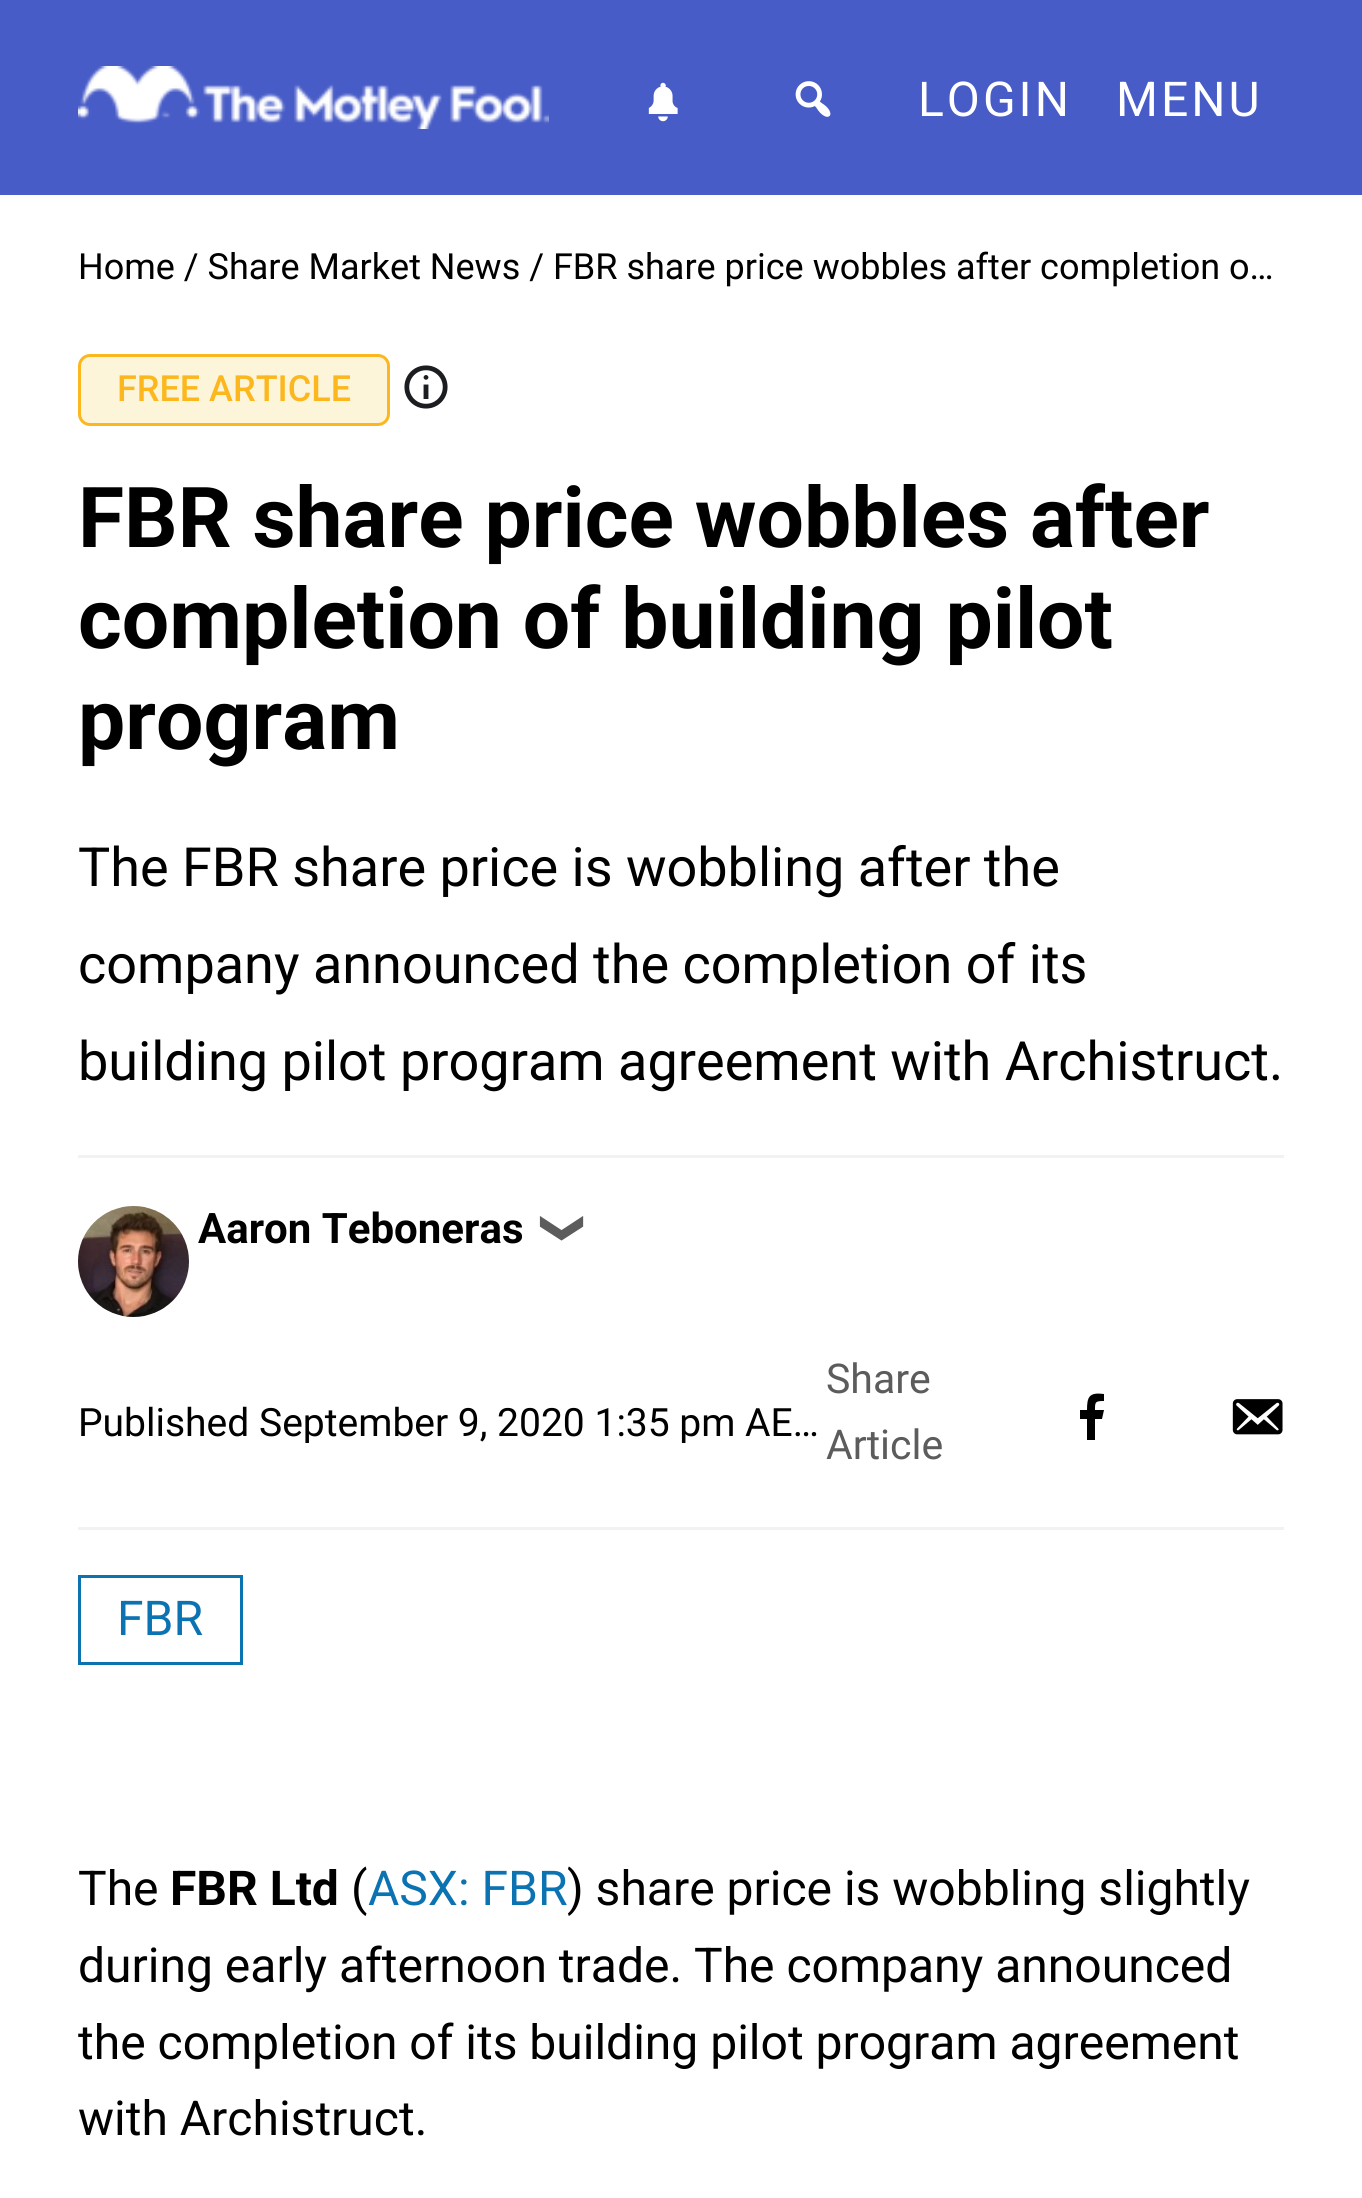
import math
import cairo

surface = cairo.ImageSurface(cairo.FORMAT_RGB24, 1362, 2198)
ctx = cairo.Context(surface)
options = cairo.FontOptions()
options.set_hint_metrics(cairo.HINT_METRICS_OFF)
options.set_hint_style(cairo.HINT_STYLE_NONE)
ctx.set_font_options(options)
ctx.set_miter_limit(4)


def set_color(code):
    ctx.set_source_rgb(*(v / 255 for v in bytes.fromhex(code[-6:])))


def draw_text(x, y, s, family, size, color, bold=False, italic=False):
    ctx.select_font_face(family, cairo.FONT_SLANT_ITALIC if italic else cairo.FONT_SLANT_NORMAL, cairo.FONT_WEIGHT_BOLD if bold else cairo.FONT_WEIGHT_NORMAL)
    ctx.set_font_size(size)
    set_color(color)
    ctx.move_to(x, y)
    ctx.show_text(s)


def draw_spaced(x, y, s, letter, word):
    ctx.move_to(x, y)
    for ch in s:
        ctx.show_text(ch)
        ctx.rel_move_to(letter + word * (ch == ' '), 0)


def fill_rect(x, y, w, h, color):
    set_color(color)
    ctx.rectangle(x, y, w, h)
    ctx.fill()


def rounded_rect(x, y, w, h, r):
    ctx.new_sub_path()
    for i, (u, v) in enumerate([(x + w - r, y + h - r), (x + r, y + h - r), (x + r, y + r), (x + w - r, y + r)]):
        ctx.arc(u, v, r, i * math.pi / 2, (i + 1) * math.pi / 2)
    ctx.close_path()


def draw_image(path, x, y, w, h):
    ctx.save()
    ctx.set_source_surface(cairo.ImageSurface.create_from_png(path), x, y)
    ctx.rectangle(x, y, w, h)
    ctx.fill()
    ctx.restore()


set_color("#ffffff")
ctx.paint()
fill_rect(0, 0, 1362, 195, "#485cc7")
draw_image("assets/img1.png", 78, 66, 471, 63)
draw_image("assets/img2.png", 648, 82, 30, 40)
draw_image("assets/img3.png", 795, 81, 36, 36)
ctx.select_font_face("Roboto")
ctx.set_font_size(48)
set_color("#ffffff")
draw_spaced(918, 116, "LOGIN", 3, 0)
draw_spaced(1116, 116, "MENU", 3, 0)
draw_text(78, 279, "Home / Share Market News / FBR share price wobbles after completion o…", "Roboto", 36, "#000000")
set_color("#fdf5da")
rounded_rect(79.5, 355.5, 309, 69, 10.5)
ctx.fill_preserve()
set_color("#fbb71d")
ctx.set_line_width(3)
ctx.stroke()
draw_text(117, 401, "FREE ARTICLE", "Roboto Medium", 36, "#fbb71d")
draw_image("assets/img4.png", 404, 365, 44, 44)
draw_text(78, 547, "FBR share price wobbles after", "Roboto", 84, "#000000", bold=True)
draw_text(78, 648, "completion of building pilot", "Roboto", 84, "#000000", bold=True)
draw_text(78, 749, "program", "Roboto", 84, "#000000", bold=True)
draw_text(78, 886, "The FBR share price is wobbling after the", "Roboto", 54, "#000000")
draw_text(78, 983, "company announced the completion of its", "Roboto", 54, "#000000")
draw_text(78, 1080, "building pilot program agreement with Archistruct.", "Roboto", 54, "#000000")
fill_rect(78, 1155, 1206, 3, "#f2f2f2")
fill_rect(78, 1527, 1206, 3, "#f2f2f2")
draw_image("assets/img5.png", 78, 1206, 111, 111)
draw_text(198, 1243, "Aaron Teboneras", "Roboto", 42, "#000000", bold=True)
ctx.save()
ctx.translate(550, 1210)
ctx.rotate(90 * math.pi / 180)
draw_text(0, 0, "❯", "DejaVu Sans", 42, "#5c5c5c", bold=True)
ctx.restore()
draw_text(78, 1436, "Published", "Roboto", 39, "#000000")
ctx.save()
ctx.rectangle(78, 1386, 747, 57)
ctx.clip()
draw_text(259, 1436, "September 9, 2020 1:35 pm AE…", "Roboto", 39, "#000000")
ctx.restore()
draw_text(826, 1393, "Share", "Roboto", 41, "#5c5c5c")
draw_text(826, 1459, "Article", "Roboto", 41, "#5c5c5c")
set_color("#000000")
ctx.new_path()
ctx.move_to(1087, 1440)
ctx.line_to(1095, 1440)
ctx.line_to(1095, 1419)
ctx.line_to(1102, 1419)
ctx.line_to(1104, 1410)
ctx.line_to(1095, 1410)
ctx.curve_to(1095, 1402, 1095, 1401, 1104, 1401)
ctx.line_to(1104, 1394)
ctx.curve_to(1089, 1392, 1087, 1397, 1087, 1410)
ctx.line_to(1080, 1410)
ctx.line_to(1080, 1419)
ctx.line_to(1087, 1419)
ctx.close_path()
ctx.fill()
draw_image("assets/img6.png", 1232, 1399, 51, 36)
ctx.rectangle(79.5, 1576.5, 162, 87)
set_color("#0c73b3")
ctx.stroke()
draw_text(117, 1635, "FBR", "Roboto", 48, "#0c73b3")
draw_text(78, 1905, "The", "Roboto", 48, "#000000")
draw_text(170, 1905, "FBR Ltd", "Roboto", 48, "#000000", bold=True)
draw_text(351, 1905, "(", "Roboto", 48, "#000000")
draw_text(368, 1905, "ASX: FBR", "Roboto", 48, "#0c73b3")
draw_text(567, 1905, ") share price is wobbling slightly", "Roboto", 48, "#000000")
draw_text(78, 1982, "during early afternoon trade. The company announced", "Roboto", 48, "#000000")
draw_text(78, 2059, "the completion of its building pilot program agreement", "Roboto", 48, "#000000")
draw_text(78, 2135, "with Archistruct.", "Roboto", 48, "#000000")
surface.write_to_png("output.png")
